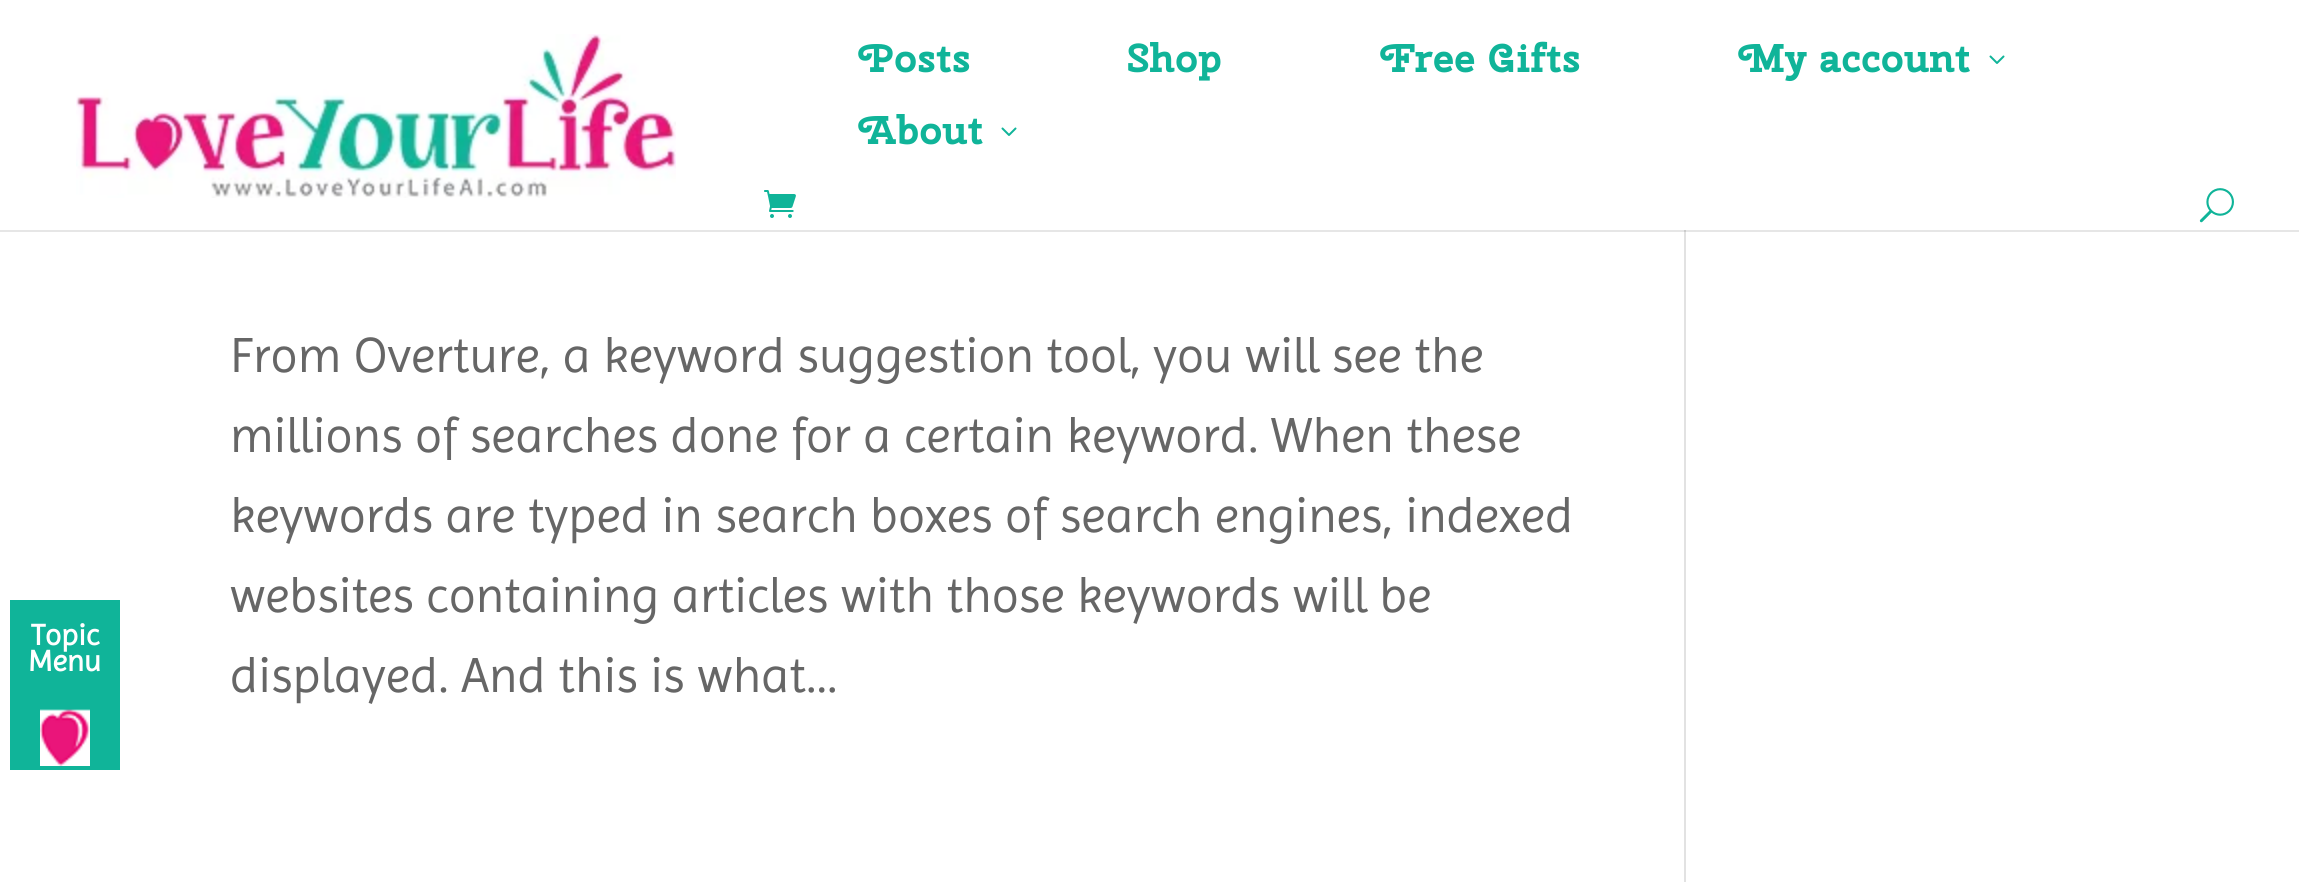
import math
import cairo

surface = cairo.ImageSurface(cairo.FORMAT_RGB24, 2299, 896)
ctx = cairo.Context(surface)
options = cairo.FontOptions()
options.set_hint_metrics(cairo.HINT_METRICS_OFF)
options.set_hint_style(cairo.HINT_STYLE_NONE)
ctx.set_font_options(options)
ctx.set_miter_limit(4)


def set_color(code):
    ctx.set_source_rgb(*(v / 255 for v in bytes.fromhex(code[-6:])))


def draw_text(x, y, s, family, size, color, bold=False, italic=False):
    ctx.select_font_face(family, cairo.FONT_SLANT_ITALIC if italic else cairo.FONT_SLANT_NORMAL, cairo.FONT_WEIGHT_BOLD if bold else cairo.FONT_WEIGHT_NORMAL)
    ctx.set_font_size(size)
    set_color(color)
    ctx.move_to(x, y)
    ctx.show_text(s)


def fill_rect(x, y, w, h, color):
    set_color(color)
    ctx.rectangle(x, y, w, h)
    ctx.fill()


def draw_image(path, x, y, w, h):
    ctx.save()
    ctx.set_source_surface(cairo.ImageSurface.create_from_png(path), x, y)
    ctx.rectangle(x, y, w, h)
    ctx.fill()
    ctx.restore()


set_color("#ffffff")
ctx.paint()
fill_rect(0, 230, 2299, 2, "#e6e6e6")
fill_rect(10, 600, 110, 170, "#10b499")
draw_text(31, 645, "Topic", "Imprima", 30, "#ffffff", bold=True)
draw_text(28, 671, "Menu", "Imprima", 30, "#ffffff", bold=True)
draw_image("assets/img1.png", 40, 709, 50, 57)
draw_image("assets/img2.png", 76, 34, 600, 164)
draw_text(860, 72, "Posts", "Cherry Swash", 40, "#10b499", bold=True)
draw_text(1130, 72, "Shop", "Cherry Swash", 40, "#10b499", bold=True)
draw_text(1382, 72, "Free Gifts", "Cherry Swash", 40, "#10b499", bold=True)
draw_text(1740, 72, "My account", "Cherry Swash", 40, "#10b499", bold=True)
draw_image("assets/img3.png", 1989, 55, 16, 9)
draw_text(860, 144, "About", "Cherry Swash", 40, "#10b499", bold=True)
draw_image("assets/img3.png", 1001, 127, 16, 9)
draw_image("assets/img4.png", 764, 190, 32, 28)
draw_image("assets/img5.png", 2199, 188, 35, 35)
draw_text(230, 372, "From Overture, a keyword suggestion tool, you will see the", "Imprima", 50, "#666666")
draw_text(230, 452, "millions of searches done for a certain keyword. When these", "Imprima", 50, "#666666")
draw_text(230, 532, "keywords are typed in search boxes of search engines, indexed", "Imprima", 50, "#666666")
draw_text(230, 612, "websites containing articles with those keywords will be", "Imprima", 50, "#666666")
draw_text(230, 692, "displayed. And this is what...", "Imprima", 50, "#666666")
fill_rect(1684, 232, 2, 650, "#e2e2e2")
fill_rect(1684, 230, 2, 2, "#cbcbcb")
surface.write_to_png("output.png")
